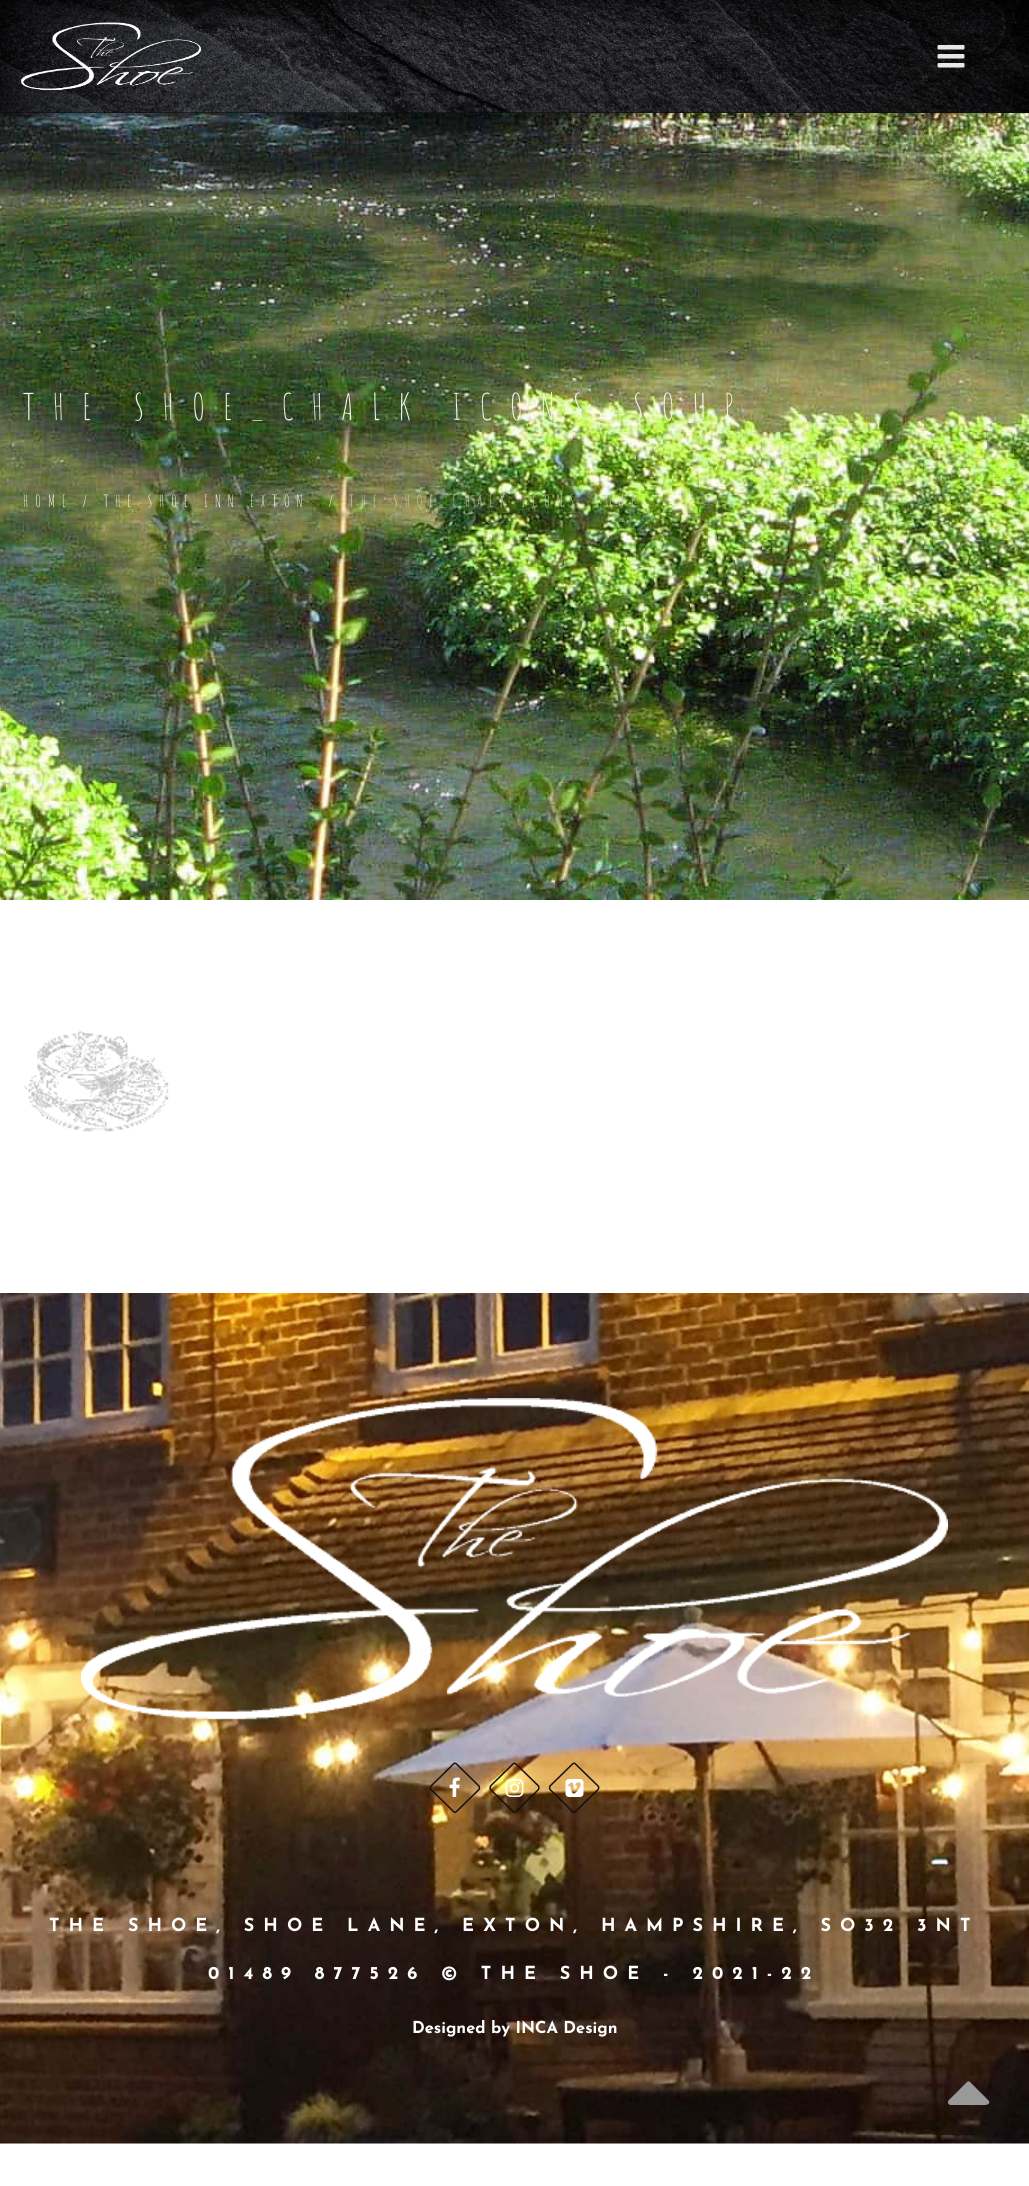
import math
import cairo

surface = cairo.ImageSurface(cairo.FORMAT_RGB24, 1029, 2186)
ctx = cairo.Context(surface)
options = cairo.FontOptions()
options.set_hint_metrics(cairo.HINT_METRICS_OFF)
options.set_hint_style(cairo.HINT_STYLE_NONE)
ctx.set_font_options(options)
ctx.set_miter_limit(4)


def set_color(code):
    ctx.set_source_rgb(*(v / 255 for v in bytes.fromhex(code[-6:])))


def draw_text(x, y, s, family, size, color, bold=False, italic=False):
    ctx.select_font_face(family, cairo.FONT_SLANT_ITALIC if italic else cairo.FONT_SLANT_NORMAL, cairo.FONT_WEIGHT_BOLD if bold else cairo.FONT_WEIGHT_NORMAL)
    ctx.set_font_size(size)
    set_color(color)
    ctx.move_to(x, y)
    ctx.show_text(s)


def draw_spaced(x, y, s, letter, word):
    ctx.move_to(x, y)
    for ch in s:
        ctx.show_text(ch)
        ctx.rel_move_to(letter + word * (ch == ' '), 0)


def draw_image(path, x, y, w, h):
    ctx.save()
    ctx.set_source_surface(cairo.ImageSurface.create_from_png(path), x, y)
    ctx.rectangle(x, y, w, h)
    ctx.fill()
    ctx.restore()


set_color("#ffffff")
ctx.paint()
draw_image("assets/img4.png", 0, 112, 1029, 788)
ctx.set_source_rgba(0.039, 0.039, 0.039, 0.95)
ctx.rectangle(0, 112, 1029, 1)
ctx.fill()
draw_image("assets/img1.png", 0, 0, 1029, 113)
draw_image("assets/img2.png", 20, 22, 181, 68)
draw_image("assets/img3.png", 937, 45, 28, 23)
ctx.select_font_face("Amatic SC")
ctx.set_font_size(36)
set_color("#eff1ec")
draw_spaced(23, 420, "THE SHOE_CHALK ICONS_SOUP", 18, 0)
ctx.set_font_size(16.5)
set_color("#ffffff")
draw_spaced(23, 507, "HOME / THE SHOE INN EXTON", 6.6, 0)
draw_spaced(328, 507, "/", 6.6, 0)
set_color("#ccd5be")
draw_spaced(349, 507, "THE SHOE_CHALK ICONS_SOUP", 6.6, 0)
draw_image("assets/img5.png", 24, 1030, 145, 102)
draw_image("assets/img6.png", 0, 1293, 1029, 851)
draw_image("assets/img7.png", 81, 1398, 867, 322)
ctx.new_path()
ctx.move_to(456.5, 1764)
ctx.line_to(479, 1786)
ctx.curve_to(479.5, 1787, 479.5, 1788.5, 479, 1789.5)
ctx.line_to(456.5, 1811.5)
ctx.curve_to(455.5, 1812.5, 454, 1812.5, 453.5, 1811.5)
ctx.line_to(431, 1789.5)
ctx.curve_to(430, 1788.5, 430, 1787, 431, 1786)
ctx.line_to(453.5, 1764)
ctx.curve_to(454, 1763, 455.5, 1763, 456.5, 1764)
ctx.close_path()
set_color("#111111")
ctx.set_line_width(1.5)
ctx.stroke()
draw_image("assets/img8.png", 449, 1777, 11, 20)
ctx.new_path()
ctx.move_to(516, 1764)
ctx.line_to(538.5, 1786)
ctx.curve_to(539, 1787, 539, 1788.5, 538.5, 1789.5)
ctx.line_to(516, 1811.5)
ctx.curve_to(515, 1812.5, 514, 1812.5, 513, 1811.5)
ctx.line_to(490.5, 1789.5)
ctx.curve_to(490, 1788.5, 490, 1787, 490.5, 1786)
ctx.line_to(513, 1764)
ctx.curve_to(514, 1763, 515, 1763, 516, 1764)
ctx.close_path()
ctx.stroke()
draw_image("assets/img9.png", 505, 1779, 19, 18)
ctx.new_path()
ctx.move_to(575.5, 1764)
ctx.line_to(598, 1786)
ctx.curve_to(599, 1787, 599, 1788.5, 598, 1789.5)
ctx.line_to(575.5, 1811.5)
ctx.curve_to(575, 1812.5, 573.5, 1812.5, 572.5, 1811.5)
ctx.line_to(550, 1789.5)
ctx.curve_to(549.5, 1788.5, 549.5, 1787, 550, 1786)
ctx.line_to(572.5, 1764)
ctx.curve_to(573.5, 1763, 575, 1763, 575.5, 1764)
ctx.close_path()
ctx.stroke()
draw_image("assets/img10.png", 565, 1779, 19, 18)
ctx.select_font_face("Josefin Sans Thin")
ctx.set_font_size(18)
set_color("#ffffff")
draw_spaced(49, 1931, "THE SHOE, SHOE LANE, EXTON, HAMPSHIRE, SO32 3NT", 9, 0)
draw_spaced(208, 1979, "01489 877526 © THE SHOE - 2021-22", 9, 0)
draw_text(412, 2033, "Designed by INCA Design", "Josefin Sans Thin", 16.5, "#ffffff")
set_color("#999999")
ctx.new_path()
ctx.move_to(988, 2100)
ctx.line_to(989, 2101)
ctx.curve_to(991, 2106, 982, 2105, 981, 2105)
ctx.line_to(950, 2105)
ctx.curve_to(948, 2104, 947, 2102, 949, 2100)
ctx.line_to(964, 2085)
ctx.curve_to(969, 2080, 968, 2080, 973, 2085)
ctx.close_path()
ctx.fill()
surface.write_to_png("output.png")
